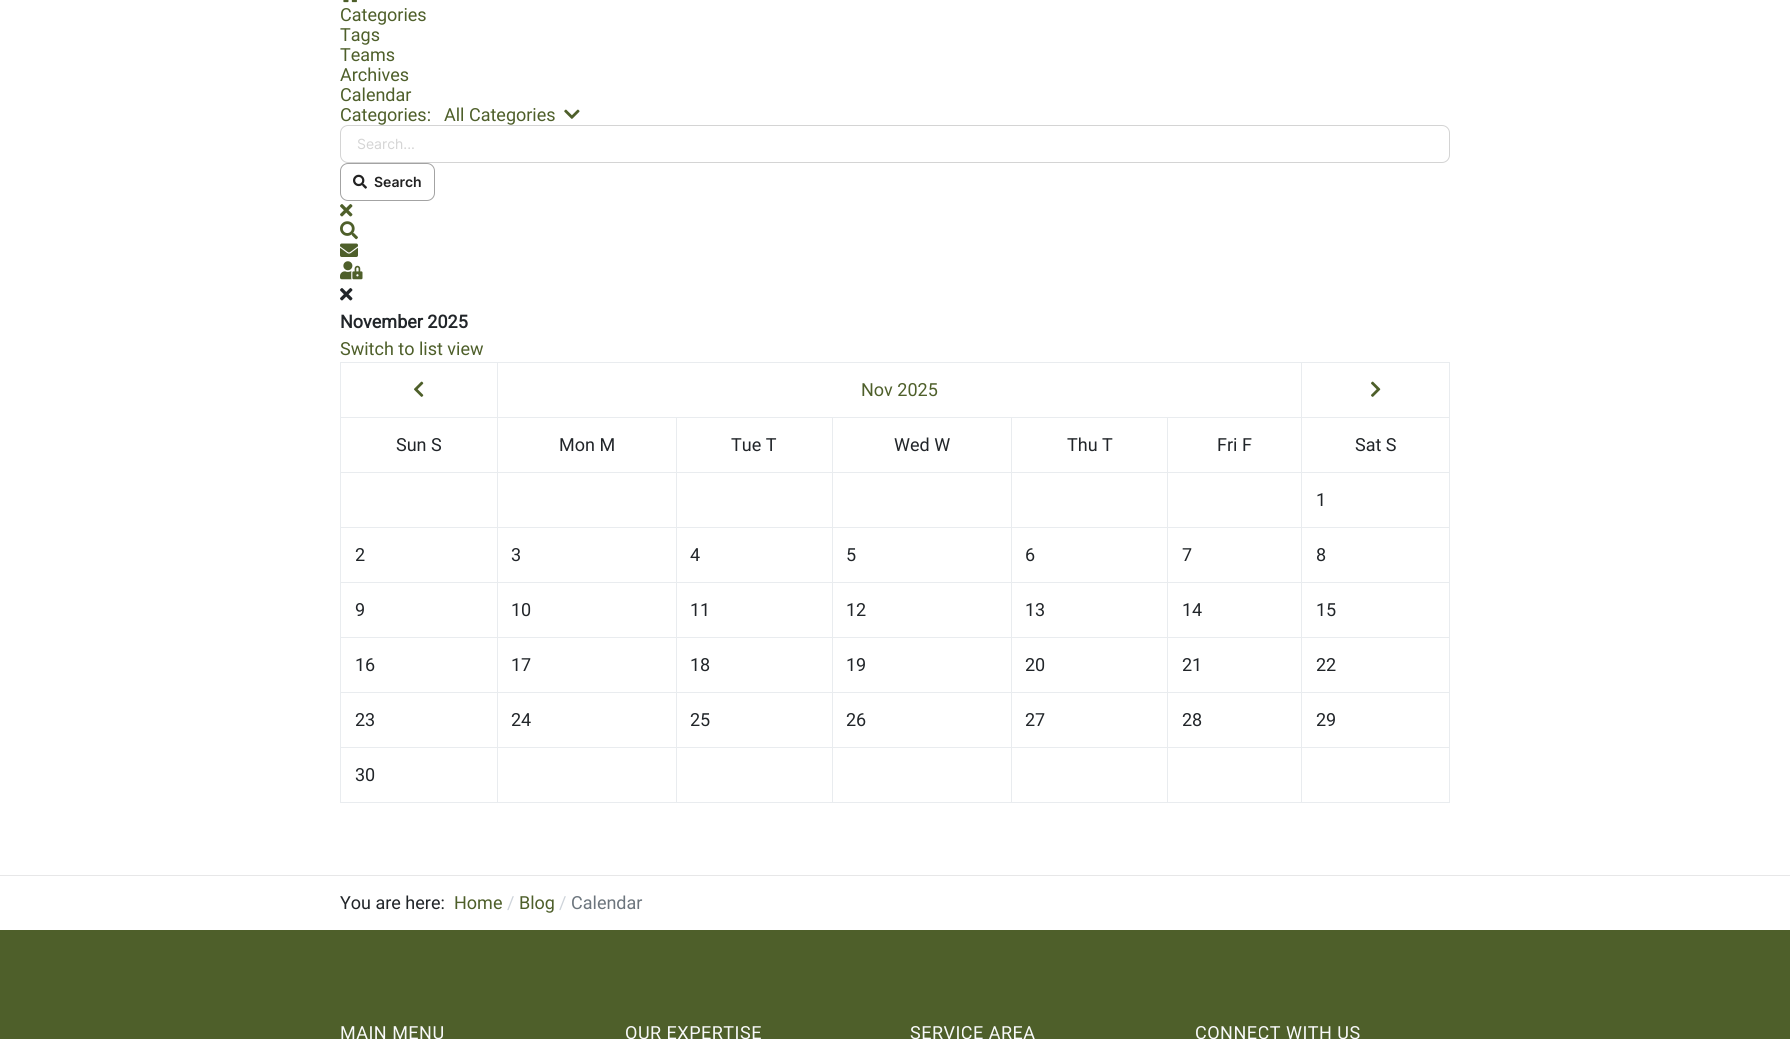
import math
import cairo

surface = cairo.ImageSurface(cairo.FORMAT_RGB24, 1790, 1039)
ctx = cairo.Context(surface)
options = cairo.FontOptions()
options.set_hint_metrics(cairo.HINT_METRICS_OFF)
options.set_hint_style(cairo.HINT_STYLE_NONE)
ctx.set_font_options(options)
ctx.set_miter_limit(4)


def set_color(code):
    ctx.set_source_rgb(*(v / 255 for v in bytes.fromhex(code[-6:])))


def draw_text(x, y, s, family, size, color, bold=False, italic=False):
    ctx.select_font_face(family, cairo.FONT_SLANT_ITALIC if italic else cairo.FONT_SLANT_NORMAL, cairo.FONT_WEIGHT_BOLD if bold else cairo.FONT_WEIGHT_NORMAL)
    ctx.set_font_size(size)
    set_color(color)
    ctx.move_to(x, y)
    ctx.show_text(s)


def draw_spaced(x, y, s, letter, word):
    ctx.move_to(x, y)
    for ch in s:
        ctx.show_text(ch)
        ctx.rel_move_to(letter + word * (ch == ' '), 0)


def fill_rect(x, y, w, h, color):
    set_color(color)
    ctx.rectangle(x, y, w, h)
    ctx.fill()


def rounded_rect(x, y, w, h, r):
    ctx.new_sub_path()
    for i, (u, v) in enumerate([(x + w - r, y + h - r), (x + r, y + h - r), (x + r, y + r), (x + w - r, y + r)]):
        ctx.arc(u, v, r, i * math.pi / 2, (i + 1) * math.pi / 2)
    ctx.close_path()


def draw_image(path, x, y, w, h):
    ctx.save()
    ctx.set_source_surface(cairo.ImageSurface.create_from_png(path), x, y)
    ctx.rectangle(x, y, w, h)
    ctx.fill()
    ctx.restore()


set_color("#ffffff")
ctx.paint()
draw_image("assets/img1.png", 343, 0, 14, 3)
draw_text(340, 21, "Categories", "Roboto", 18, "#4e5f2a")
draw_text(340, 41, "Tags", "Roboto", 18, "#4e5f2a")
draw_text(340, 61, "Teams", "Roboto", 18, "#4e5f2a")
draw_text(340, 81, "Archives", "Roboto", 18, "#4e5f2a")
draw_text(340, 101, "Calendar", "Roboto", 18, "#4e5f2a")
draw_text(340, 121, "Categories:", "Roboto", 18, "#4e5f2a")
draw_text(444, 121, "All Categories", "Roboto", 18, "#4e5f2a")
draw_image("assets/img2.png", 564, 109, 16, 10)
rounded_rect(340.5, 125.5, 1109, 37, 7.5)
set_color("#d4d4d4")
ctx.set_line_width(1)
ctx.stroke()
draw_text(357, 149, "Search...", "Inter", 14, "#d4d4d4")
rounded_rect(340.5, 163.5, 94, 37, 7.5)
set_color("#a3a3a3")
ctx.stroke()
draw_image("assets/img3.png", 353, 174, 14, 15)
draw_text(374, 187, "Search", "Inter SemiBold", 14, "#222222")
draw_image("assets/img4.png", 340, 204, 13, 13)
draw_image("assets/img5.png", 340, 221, 18, 19)
draw_image("assets/img6.png", 340, 243, 18, 14)
draw_image("assets/img7.png", 340, 261, 23, 19)
draw_image("assets/img8.png", 340, 288, 13, 13)
draw_text(340, 328, "November 2025", "Roboto", 18, "#212529", bold=True)
draw_text(340, 355, "Switch to list view", "Roboto", 18, "#4e5f2a")
fill_rect(340, 362, 1110, 1, "#e9ecef")
fill_rect(1449, 362, 1, 441, "#e9ecef")
fill_rect(340, 802, 1110, 1, "#e9ecef")
fill_rect(340, 362, 1, 441, "#e9ecef")
draw_image("assets/img9.png", 414, 381, 10, 16)
fill_rect(1301, 417, 149, 1, "#e9ecef")
fill_rect(1301, 472, 149, 1, "#e9ecef")
fill_rect(1301, 527, 149, 1, "#e9ecef")
fill_rect(1301, 582, 149, 1, "#e9ecef")
fill_rect(1301, 637, 149, 1, "#e9ecef")
fill_rect(1301, 692, 149, 1, "#e9ecef")
fill_rect(1301, 747, 149, 1, "#e9ecef")
fill_rect(1301, 747, 1, 56, "#e9ecef")
fill_rect(1167, 747, 135, 1, "#e9ecef")
fill_rect(1301, 692, 1, 56, "#e9ecef")
fill_rect(1167, 692, 135, 1, "#e9ecef")
fill_rect(1301, 637, 1, 56, "#e9ecef")
fill_rect(1167, 637, 135, 1, "#e9ecef")
fill_rect(1301, 582, 1, 56, "#e9ecef")
fill_rect(1167, 582, 135, 1, "#e9ecef")
fill_rect(1301, 527, 1, 56, "#e9ecef")
fill_rect(1167, 527, 135, 1, "#e9ecef")
fill_rect(1301, 472, 1, 56, "#e9ecef")
fill_rect(1167, 472, 135, 1, "#e9ecef")
fill_rect(1301, 417, 1, 56, "#e9ecef")
fill_rect(1167, 417, 135, 1, "#e9ecef")
fill_rect(1167, 747, 1, 56, "#e9ecef")
fill_rect(1011, 747, 157, 1, "#e9ecef")
fill_rect(1167, 692, 1, 56, "#e9ecef")
fill_rect(1011, 692, 157, 1, "#e9ecef")
fill_rect(1167, 637, 1, 56, "#e9ecef")
fill_rect(1011, 637, 157, 1, "#e9ecef")
fill_rect(1167, 582, 1, 56, "#e9ecef")
fill_rect(1011, 582, 157, 1, "#e9ecef")
fill_rect(1167, 527, 1, 56, "#e9ecef")
fill_rect(1011, 527, 157, 1, "#e9ecef")
fill_rect(1167, 472, 1, 56, "#e9ecef")
fill_rect(1011, 472, 157, 1, "#e9ecef")
fill_rect(1167, 417, 1, 56, "#e9ecef")
fill_rect(1011, 417, 157, 1, "#e9ecef")
fill_rect(1011, 747, 1, 56, "#e9ecef")
fill_rect(832, 747, 180, 1, "#e9ecef")
fill_rect(1011, 692, 1, 56, "#e9ecef")
fill_rect(832, 692, 180, 1, "#e9ecef")
fill_rect(1011, 637, 1, 56, "#e9ecef")
fill_rect(832, 637, 180, 1, "#e9ecef")
fill_rect(1011, 582, 1, 56, "#e9ecef")
fill_rect(832, 582, 180, 1, "#e9ecef")
fill_rect(1011, 527, 1, 56, "#e9ecef")
fill_rect(832, 527, 180, 1, "#e9ecef")
fill_rect(1011, 472, 1, 56, "#e9ecef")
fill_rect(832, 472, 180, 1, "#e9ecef")
fill_rect(1011, 417, 1, 56, "#e9ecef")
fill_rect(832, 417, 180, 1, "#e9ecef")
fill_rect(832, 747, 1, 56, "#e9ecef")
fill_rect(676, 747, 157, 1, "#e9ecef")
fill_rect(832, 692, 1, 56, "#e9ecef")
fill_rect(676, 692, 157, 1, "#e9ecef")
fill_rect(832, 637, 1, 56, "#e9ecef")
fill_rect(676, 637, 157, 1, "#e9ecef")
fill_rect(832, 582, 1, 56, "#e9ecef")
fill_rect(676, 582, 157, 1, "#e9ecef")
fill_rect(832, 527, 1, 56, "#e9ecef")
fill_rect(676, 527, 157, 1, "#e9ecef")
fill_rect(832, 472, 1, 56, "#e9ecef")
fill_rect(676, 472, 157, 1, "#e9ecef")
fill_rect(832, 417, 1, 56, "#e9ecef")
fill_rect(676, 417, 157, 1, "#e9ecef")
fill_rect(676, 747, 1, 56, "#e9ecef")
fill_rect(497, 747, 180, 1, "#e9ecef")
fill_rect(676, 692, 1, 56, "#e9ecef")
fill_rect(497, 692, 180, 1, "#e9ecef")
fill_rect(676, 637, 1, 56, "#e9ecef")
fill_rect(497, 637, 180, 1, "#e9ecef")
fill_rect(676, 582, 1, 56, "#e9ecef")
fill_rect(497, 582, 180, 1, "#e9ecef")
fill_rect(676, 527, 1, 56, "#e9ecef")
fill_rect(497, 527, 180, 1, "#e9ecef")
fill_rect(676, 472, 1, 56, "#e9ecef")
fill_rect(497, 472, 180, 1, "#e9ecef")
fill_rect(676, 417, 1, 56, "#e9ecef")
fill_rect(497, 417, 180, 1, "#e9ecef")
fill_rect(497, 747, 1, 56, "#e9ecef")
fill_rect(340, 747, 158, 1, "#e9ecef")
fill_rect(497, 692, 1, 56, "#e9ecef")
fill_rect(340, 692, 158, 1, "#e9ecef")
fill_rect(497, 637, 1, 56, "#e9ecef")
fill_rect(340, 637, 158, 1, "#e9ecef")
fill_rect(497, 582, 1, 56, "#e9ecef")
fill_rect(340, 582, 158, 1, "#e9ecef")
fill_rect(497, 527, 1, 56, "#e9ecef")
fill_rect(340, 527, 158, 1, "#e9ecef")
fill_rect(497, 472, 1, 56, "#e9ecef")
fill_rect(340, 472, 158, 1, "#e9ecef")
fill_rect(497, 417, 1, 56, "#e9ecef")
fill_rect(340, 417, 158, 1, "#e9ecef")
fill_rect(497, 362, 1, 56, "#e9ecef")
draw_text(861, 396, "Nov 2025", "Roboto", 18, "#4e5f2a")
fill_rect(1301, 362, 1, 56, "#e9ecef")
draw_image("assets/img10.png", 1371, 381, 10, 16)
draw_text(396, 451, "Sun S", "Roboto", 18, "#212529")
draw_text(559, 451, "Mon M", "Roboto", 18, "#212529")
draw_text(731, 451, "Tue T", "Roboto", 18, "#212529")
draw_text(894, 451, "Wed W", "Roboto", 18, "#212529")
draw_text(1067, 451, "Thu T", "Roboto", 18, "#212529")
draw_text(1217, 451, "Fri F", "Roboto", 18, "#212529")
draw_text(1355, 451, "Sat S", "Roboto", 18, "#212529")
draw_text(1316, 506, "1", "Roboto", 18, "#212529")
draw_text(355, 561, "2", "Roboto", 18, "#212529")
draw_text(511, 561, "3", "Roboto", 18, "#212529")
draw_text(690, 561, "4", "Roboto", 18, "#212529")
draw_text(846, 561, "5", "Roboto", 18, "#212529")
draw_text(1025, 561, "6", "Roboto", 18, "#212529")
draw_text(1182, 561, "7", "Roboto", 18, "#212529")
draw_text(1316, 561, "8", "Roboto", 18, "#212529")
draw_text(355, 616, "9", "Roboto", 18, "#212529")
draw_text(511, 616, "10", "Roboto", 18, "#212529")
draw_text(690, 616, "11", "Roboto", 18, "#212529")
draw_text(846, 616, "12", "Roboto", 18, "#212529")
draw_text(1025, 616, "13", "Roboto", 18, "#212529")
draw_text(1182, 616, "14", "Roboto", 18, "#212529")
draw_text(1316, 616, "15", "Roboto", 18, "#212529")
draw_text(355, 671, "16", "Roboto", 18, "#212529")
draw_text(511, 671, "17", "Roboto", 18, "#212529")
draw_text(690, 671, "18", "Roboto", 18, "#212529")
draw_text(846, 671, "19", "Roboto", 18, "#212529")
draw_text(1025, 671, "20", "Roboto", 18, "#212529")
draw_text(1182, 671, "21", "Roboto", 18, "#212529")
draw_text(1316, 671, "22", "Roboto", 18, "#212529")
draw_text(355, 726, "23", "Roboto", 18, "#212529")
draw_text(511, 726, "24", "Roboto", 18, "#212529")
draw_text(690, 726, "25", "Roboto", 18, "#212529")
draw_text(846, 726, "26", "Roboto", 18, "#212529")
draw_text(1025, 726, "27", "Roboto", 18, "#212529")
draw_text(1182, 726, "28", "Roboto", 18, "#212529")
draw_text(1316, 726, "29", "Roboto", 18, "#212529")
draw_text(355, 781, "30", "Roboto", 18, "#212529")
fill_rect(0, 875, 1790, 1, "#e7e7e8")
draw_text(340, 909, "You are here:", "Roboto", 18, "#212529")
draw_text(454, 909, "Home", "Roboto", 18, "#4e5f2a")
draw_text(507, 909, "/", "Roboto", 18, "#ced4da")
draw_text(519, 909, "Blog", "Roboto", 18, "#4e5f2a")
draw_text(559, 909, "/", "Roboto", 18, "#ced4da")
draw_text(571, 909, "Calendar", "Roboto", 18, "#6c757d")
fill_rect(0, 930, 1790, 109, "#4e5f2a")
set_color("#f8f9fa")
draw_spaced(340, 1039, "MAIN MENU", 0.5, 0)
draw_spaced(625, 1039, "OUR EXPERTISE", 0.5, 0)
draw_spaced(910, 1039, "SERVICE AREA", 0.5, 0)
draw_spaced(1195, 1039, "CONNECT WITH US", 0.5, 0)
surface.write_to_png("output.png")
